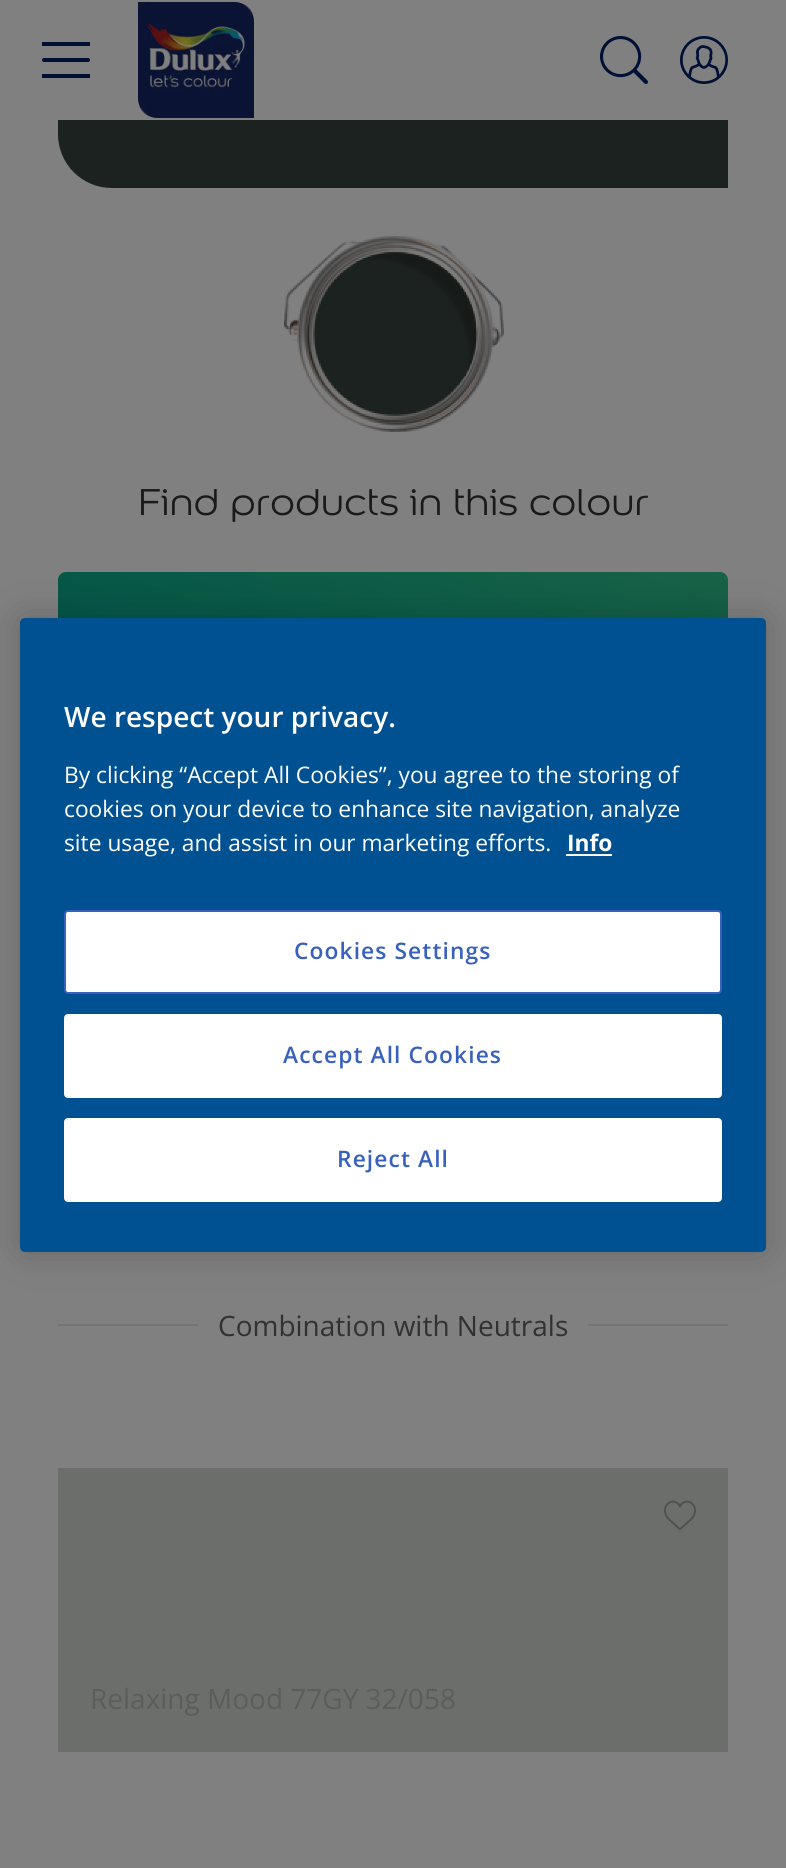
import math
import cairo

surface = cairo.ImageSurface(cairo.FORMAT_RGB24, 786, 1868)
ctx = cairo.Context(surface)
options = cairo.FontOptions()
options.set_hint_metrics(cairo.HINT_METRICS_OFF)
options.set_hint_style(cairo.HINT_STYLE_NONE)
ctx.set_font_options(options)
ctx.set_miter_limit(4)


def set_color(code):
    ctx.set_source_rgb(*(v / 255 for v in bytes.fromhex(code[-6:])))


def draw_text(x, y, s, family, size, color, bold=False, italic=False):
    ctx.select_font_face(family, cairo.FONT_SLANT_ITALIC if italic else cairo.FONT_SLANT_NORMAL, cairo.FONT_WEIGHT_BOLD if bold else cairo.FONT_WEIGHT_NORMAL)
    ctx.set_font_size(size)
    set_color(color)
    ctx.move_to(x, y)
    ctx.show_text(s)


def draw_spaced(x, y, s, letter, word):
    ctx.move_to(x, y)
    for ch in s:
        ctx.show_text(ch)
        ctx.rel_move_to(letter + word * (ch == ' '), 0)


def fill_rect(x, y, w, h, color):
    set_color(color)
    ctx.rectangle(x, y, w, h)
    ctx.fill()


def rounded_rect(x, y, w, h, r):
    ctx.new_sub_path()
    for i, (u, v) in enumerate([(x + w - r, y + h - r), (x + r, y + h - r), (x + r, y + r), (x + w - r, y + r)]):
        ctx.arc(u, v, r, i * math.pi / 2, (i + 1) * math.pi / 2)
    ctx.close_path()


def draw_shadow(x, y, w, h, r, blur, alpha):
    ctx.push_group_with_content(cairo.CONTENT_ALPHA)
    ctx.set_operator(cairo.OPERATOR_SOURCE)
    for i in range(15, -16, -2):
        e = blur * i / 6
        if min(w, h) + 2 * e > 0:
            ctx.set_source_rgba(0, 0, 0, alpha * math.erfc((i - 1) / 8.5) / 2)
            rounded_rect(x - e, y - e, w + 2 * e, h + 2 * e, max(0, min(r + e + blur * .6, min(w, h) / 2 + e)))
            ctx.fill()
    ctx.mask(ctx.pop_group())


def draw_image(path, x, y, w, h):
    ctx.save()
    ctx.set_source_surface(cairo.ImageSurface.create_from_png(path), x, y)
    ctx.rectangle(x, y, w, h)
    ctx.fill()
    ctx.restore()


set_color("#808080")
ctx.paint()
set_color("#1c2220")
ctx.new_path()
ctx.move_to(58, -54)
ctx.line_to(674, -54)
ctx.curve_to(704, -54, 728, -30, 728, 0)
ctx.line_to(728, 188)
ctx.line_to(112, 188)
ctx.curve_to(82, 188, 58, 164, 58, 134)
ctx.close_path()
ctx.fill()
fill_rect(58, 0, 670, 120, "#808080")
set_color("#011135")
rounded_rect(42, 58, 48, 4, 2)
ctx.fill()
fill_rect(42, 42, 48, 4, "#011135")
fill_rect(42, 74, 48, 4, "#011135")
draw_image("assets/img1.png", 138, 2, 116, 116)
draw_image("assets/img2.png", 600, 36, 48, 48)
draw_image("assets/img3.png", 680, 36, 48, 48)
fill_rect(313, 252, 165, 164, "#1c2220")
draw_image("assets/img4.png", 284, 236, 220, 196)
draw_text(138, 515, "Find products in this colour", "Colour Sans", 40, "#1a1a1a")
gradient = cairo.LinearGradient(339, 764, 447, 470)
gradient.add_color_stop_rgba(0, 0, 0.329, 0.278, 1)
gradient.add_color_stop_rgba(1, 0.094, 0.384, 0.278, 1)
ctx.set_source(gradient)
rounded_rect(58, 572, 670, 90, 8)
ctx.fill()
fill_rect(58, 1324, 140, 2, "#747474")
draw_text(218, 1336, "Combination with Neutrals", "Open Sans", 28, "#313131")
fill_rect(588, 1324, 140, 2, "#747474")
fill_rect(58, 1468, 670, 284, "#6c6e6c")
draw_image("assets/img5.png", 664, 1500, 32, 31)
draw_text(90, 1709, "Relaxing Mood 77GY 32/058", "Open Sans", 28, "#5c5c5c")
set_color("#000000")
draw_shadow(20, 618, 746, 634, 5, 18, 0.2)
set_color("#005192")
rounded_rect(20, 618, 746, 634, 5)
ctx.fill()
draw_text(64, 727, "We respect your privacy.", "Open Sans SemiBold", 28, "#ffffff")
draw_text(64, 783, "By clicking “Accept All Cookies”, you agree to the storing of", "Open Sans", 22.75, "#ffffff")
draw_text(64, 817, "cookies on your device to enhance site navigation, analyze", "Open Sans", 22.75, "#ffffff")
draw_text(64, 851, "site usage, and assist in our marketing efforts.", "Open Sans", 22.75, "#ffffff")
draw_text(567, 851, "Info", "Open Sans", 22.75, "#ffffff", bold=True)
fill_rect(566, 854, 46, 2, "#fafbff")
set_color("#ffffff")
rounded_rect(65, 911, 656, 82, 3)
ctx.fill_preserve()
set_color("#3860be")
ctx.stroke()
ctx.select_font_face("Open Sans SemiBold")
draw_spaced(294, 959, "Cookies Settings", 1.1, 0)
set_color("#ffffff")
rounded_rect(65, 1015, 656, 82, 3)
ctx.fill_preserve()
ctx.stroke()
set_color("#3860be")
draw_spaced(283, 1063, "Accept All Cookies", 1.1, 0)
set_color("#ffffff")
rounded_rect(65, 1119, 656, 82, 3)
ctx.fill_preserve()
ctx.stroke()
set_color("#3860be")
draw_spaced(337, 1167, "Reject All", 1.1, 0)
surface.write_to_png("output.png")
